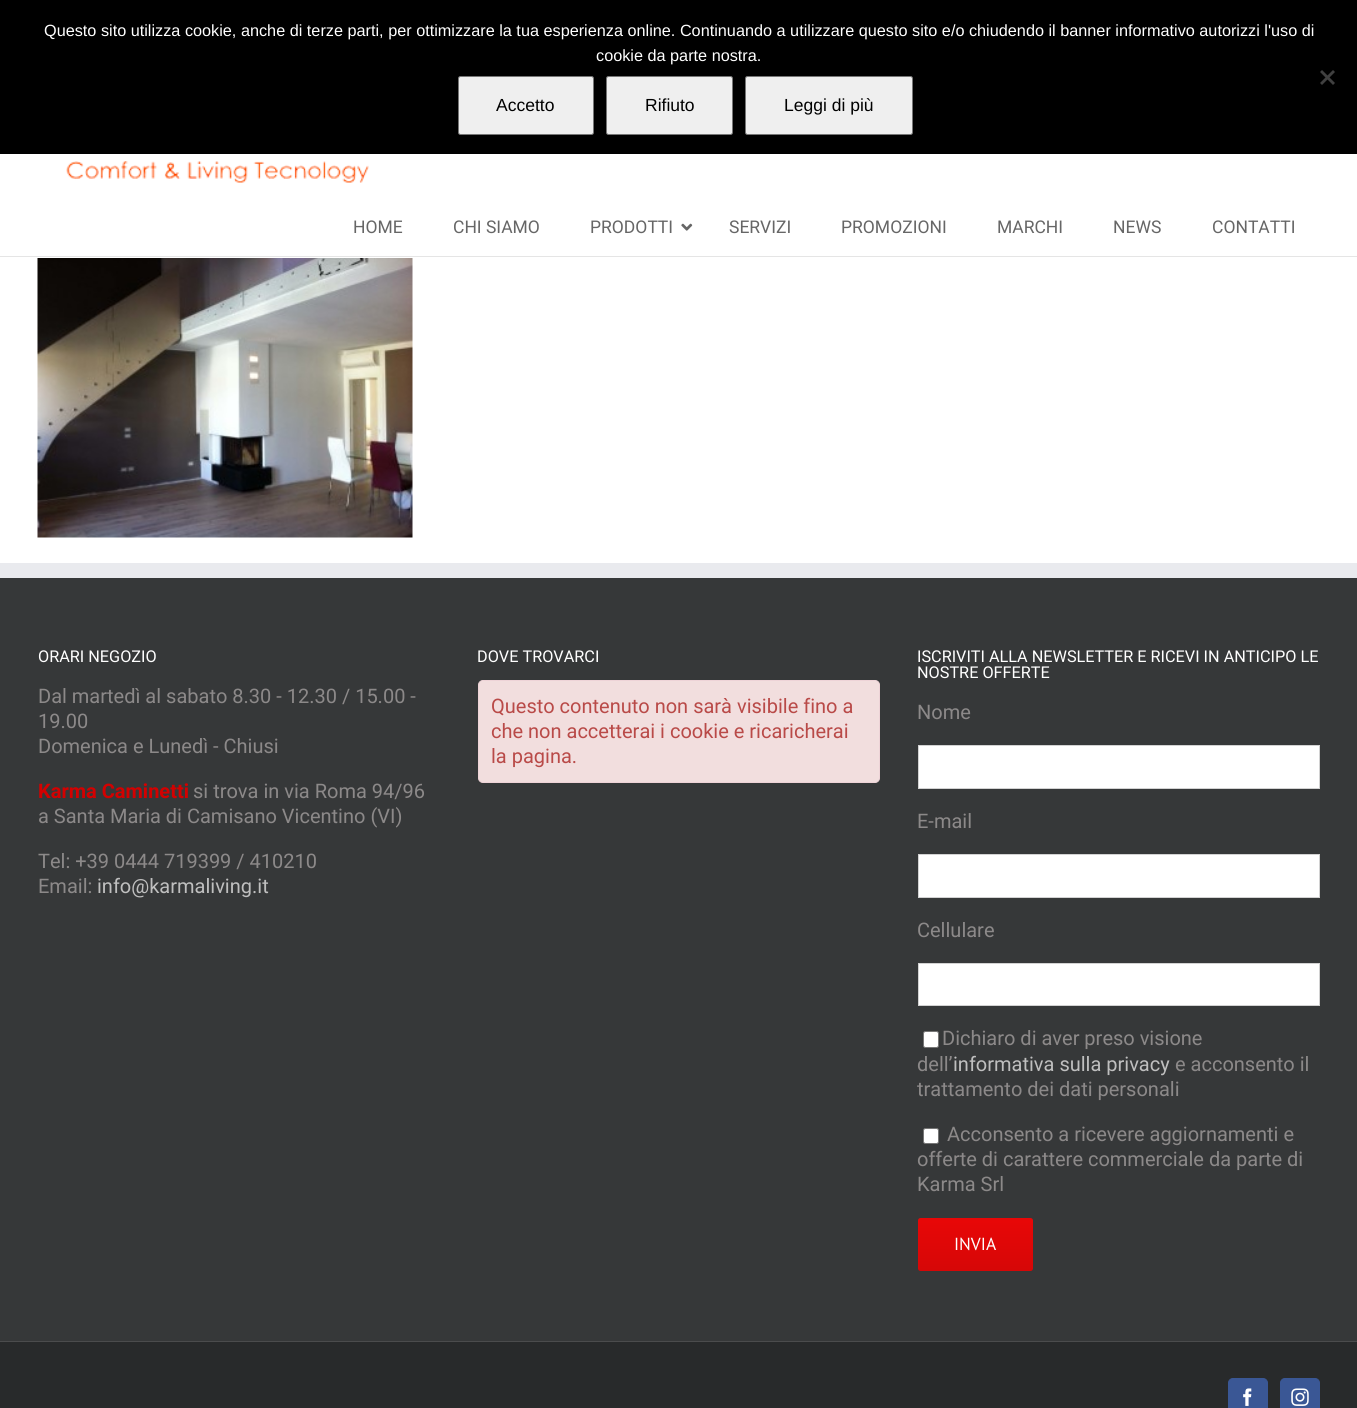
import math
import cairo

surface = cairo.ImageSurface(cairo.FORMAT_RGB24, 1357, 1408)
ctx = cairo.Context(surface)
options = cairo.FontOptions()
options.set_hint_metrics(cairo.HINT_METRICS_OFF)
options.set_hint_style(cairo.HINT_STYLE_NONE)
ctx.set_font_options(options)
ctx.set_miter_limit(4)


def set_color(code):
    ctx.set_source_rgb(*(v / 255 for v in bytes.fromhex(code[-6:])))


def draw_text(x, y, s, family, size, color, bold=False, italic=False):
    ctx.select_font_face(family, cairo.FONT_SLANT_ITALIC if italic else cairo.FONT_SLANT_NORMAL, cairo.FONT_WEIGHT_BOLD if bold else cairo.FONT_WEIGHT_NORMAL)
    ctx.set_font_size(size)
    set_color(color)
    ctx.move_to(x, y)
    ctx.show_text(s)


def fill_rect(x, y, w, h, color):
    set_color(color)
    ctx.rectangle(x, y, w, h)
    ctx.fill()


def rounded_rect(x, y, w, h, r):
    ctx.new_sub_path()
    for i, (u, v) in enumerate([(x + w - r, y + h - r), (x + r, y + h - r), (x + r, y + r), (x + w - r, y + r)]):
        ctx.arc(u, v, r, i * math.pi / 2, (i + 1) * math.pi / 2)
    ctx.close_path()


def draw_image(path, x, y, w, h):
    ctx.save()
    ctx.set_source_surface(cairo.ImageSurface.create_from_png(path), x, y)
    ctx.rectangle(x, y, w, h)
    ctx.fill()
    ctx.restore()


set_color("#ffffff")
ctx.paint()
fill_rect(0, 0, 1357, 154, "#000000")
draw_text(44, 36, "Questo sito utilizza cookie, anche di terze parti, per ottimizzare la tua esperienza online. Continuando a utilizzare questo sito e/o chiudendo il banner informativo autorizzi l'uso di", "Liberation Sans", 16.25, "#ffffff")
draw_text(596, 61, "cookie da parte nostra.", "Liberation Sans", 16.25, "#ffffff")
set_color("#404040")
ctx.new_path()
ctx.move_to(1333, 70)
ctx.line_to(1335, 72)
ctx.line_to(1322, 85)
ctx.line_to(1320, 83)
ctx.close_path()
ctx.fill()
ctx.new_path()
ctx.move_to(1320, 72)
ctx.line_to(1322, 70)
ctx.line_to(1335, 83)
ctx.line_to(1333, 85)
ctx.close_path()
ctx.fill()
set_color("#efefef")
rounded_rect(458.5, 76.5, 135, 58, 2)
ctx.fill_preserve()
set_color("#767676")
ctx.set_line_width(1)
ctx.stroke()
draw_text(496, 111, "Accetto", "Liberation Sans", 17.5, "#000000")
set_color("#efefef")
rounded_rect(606.5, 76.5, 126, 58, 2)
ctx.fill_preserve()
set_color("#767676")
ctx.stroke()
draw_text(645, 111, "Rifiuto", "Liberation Sans", 17.5, "#000000")
set_color("#efefef")
rounded_rect(745.5, 76.5, 167, 58, 2)
ctx.fill_preserve()
set_color("#767676")
ctx.stroke()
draw_text(784, 111, "Leggi di più", "Liberation Sans", 17.5, "#000000")
fill_rect(0, 256, 1357, 1, "#e5e5e5")
draw_image("assets/img1.png", 66, 161, 303, 22)
draw_text(353, 233, "HOME", "Roboto", 17.5, "#666666")
draw_text(453, 233, "CHI SIAMO", "Roboto", 17.5, "#666666")
draw_text(590, 233, "PRODOTTI", "Roboto", 17.5, "#666666")
draw_image("assets/img2.png", 681, 223, 12, 8)
draw_text(729, 233, "SERVIZI", "Roboto", 17.5, "#666666")
draw_text(841, 233, "PROMOZIONI", "Roboto", 17.5, "#666666")
draw_text(997, 233, "MARCHI", "Roboto", 17.5, "#666666")
draw_text(1113, 233, "NEWS", "Roboto", 17.5, "#666666")
draw_text(1212, 233, "CONTATTI", "Roboto", 17.5, "#666666")
draw_image("assets/img3.png", 37, 258, 376, 280)
fill_rect(0, 578, 1357, 763, "#363839")
fill_rect(0, 563, 1357, 15, "#e9eaee")
draw_text(38, 662, "ORARI NEGOZIO", "Roboto", 16.25, "#ffffff")
draw_text(38, 703, "Dal martedì al sabato 8.30 - 12.30 / 15.00 -", "Roboto", 20, "#8c8989")
draw_text(38, 728, "19.00", "Roboto", 20, "#8c8989")
draw_text(38, 753, "Domenica e Lunedì - Chiusi", "Roboto", 20, "#8c8989")
draw_text(38, 798, "Karma Caminetti", "Roboto", 20, "#d40000", bold=True)
draw_text(193, 798, "si trova in via Roma 94/96", "Roboto", 20, "#8c8989")
draw_text(38, 823, "a Santa Maria di Camisano Vicentino (VI)", "Roboto", 20, "#8c8989")
draw_text(38, 868, "Tel: +39 0444 719399 / 410210", "Roboto", 20, "#8c8989")
draw_text(38, 893, "Email:", "Roboto", 20, "#8c8989")
draw_text(97, 893, "info@karmaliving.it", "Roboto", 20, "#bfbfbf")
draw_text(477, 662, "DOVE TROVARCI", "Roboto", 16.25, "#ffffff")
set_color("#f2dede")
rounded_rect(478.5, 680.5, 401, 102, 4.5)
ctx.fill_preserve()
set_color("#eed3d7")
ctx.stroke()
draw_text(491, 713, "Questo contenuto non sarà visibile fino a", "Roboto", 20, "#b94a48")
draw_text(491, 738, "che non accetterai i cookie e ricaricherai", "Roboto", 20, "#b94a48")
draw_text(491, 763, "la pagina.", "Roboto", 20, "#b94a48")
draw_text(917, 662, "ISCRIVITI ALLA NEWSLETTER E RICEVI IN ANTICIPO LE", "Roboto", 16.25, "#ffffff")
draw_text(917, 678, "NOSTRE OFFERTE", "Roboto", 16.25, "#ffffff")
draw_text(917, 719, "Nome", "Roboto", 20, "#8c8989")
set_color("#ffffff")
ctx.rectangle(918.5, 745.5, 401, 43)
ctx.fill_preserve()
set_color("#d2d2d2")
ctx.stroke()
draw_text(917, 828, "E-mail", "Roboto", 20, "#8c8989")
set_color("#ffffff")
ctx.rectangle(918.5, 854.5, 401, 43)
ctx.fill_preserve()
set_color("#d2d2d2")
ctx.stroke()
draw_text(917, 937, "Cellulare", "Roboto", 20, "#8c8989")
set_color("#ffffff")
ctx.rectangle(918.5, 963.5, 401, 42)
ctx.fill_preserve()
set_color("#d2d2d2")
ctx.stroke()
set_color("#ffffff")
rounded_rect(923.5, 1031.5, 15, 16, 2)
ctx.fill_preserve()
set_color("#767676")
ctx.stroke()
draw_text(942, 1045, "Dichiaro di aver preso visione", "Roboto", 20, "#8c8989")
draw_text(917, 1071, "dell’", "Roboto", 20, "#8c8989")
draw_text(953, 1071, "informativa sulla privacy", "Roboto", 20, "#bfbfbf")
draw_text(1175, 1071, "e acconsento il", "Roboto", 20, "#8c8989")
draw_text(917, 1096, "trattamento dei dati personali", "Roboto", 20, "#8c8989")
set_color("#ffffff")
rounded_rect(923.5, 1128.5, 15, 15, 2)
ctx.fill_preserve()
set_color("#767676")
ctx.stroke()
draw_text(947, 1141, "Acconsento a ricevere aggiornamenti e", "Roboto", 20, "#8c8989")
draw_text(917, 1166, "offerte di carattere commerciale da parte di", "Roboto", 20, "#8c8989")
draw_text(917, 1191, "Karma Srl", "Roboto", 20, "#8c8989")
gradient = cairo.LinearGradient(975, 1218, 975, 1271)
gradient.add_color_stop_rgba(0, 0.91, 0.027, 0.027, 1)
gradient.add_color_stop_rgba(1, 0.839, 0.027, 0.027, 1)
ctx.set_source(gradient)
rounded_rect(918, 1218, 115, 53, 2.5)
ctx.fill()
draw_text(954, 1250, "INVIA", "PT Sans", 17.5, "#ffffff")
fill_rect(0, 1342, 1357, 66, "#282a2b")
fill_rect(0, 1341, 1357, 1, "#4b4c4d")
set_color("#3a5795")
rounded_rect(1228.5, 1378.5, 39, 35, 4.5)
ctx.fill_preserve()
ctx.stroke()
draw_image("assets/img4.png", 1243, 1388, 9, 18)
rounded_rect(1280.5, 1378.5, 39, 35, 4.5)
ctx.fill_preserve()
ctx.stroke()
draw_image("assets/img5.png", 1291, 1388, 18, 18)
surface.write_to_png("output.png")
